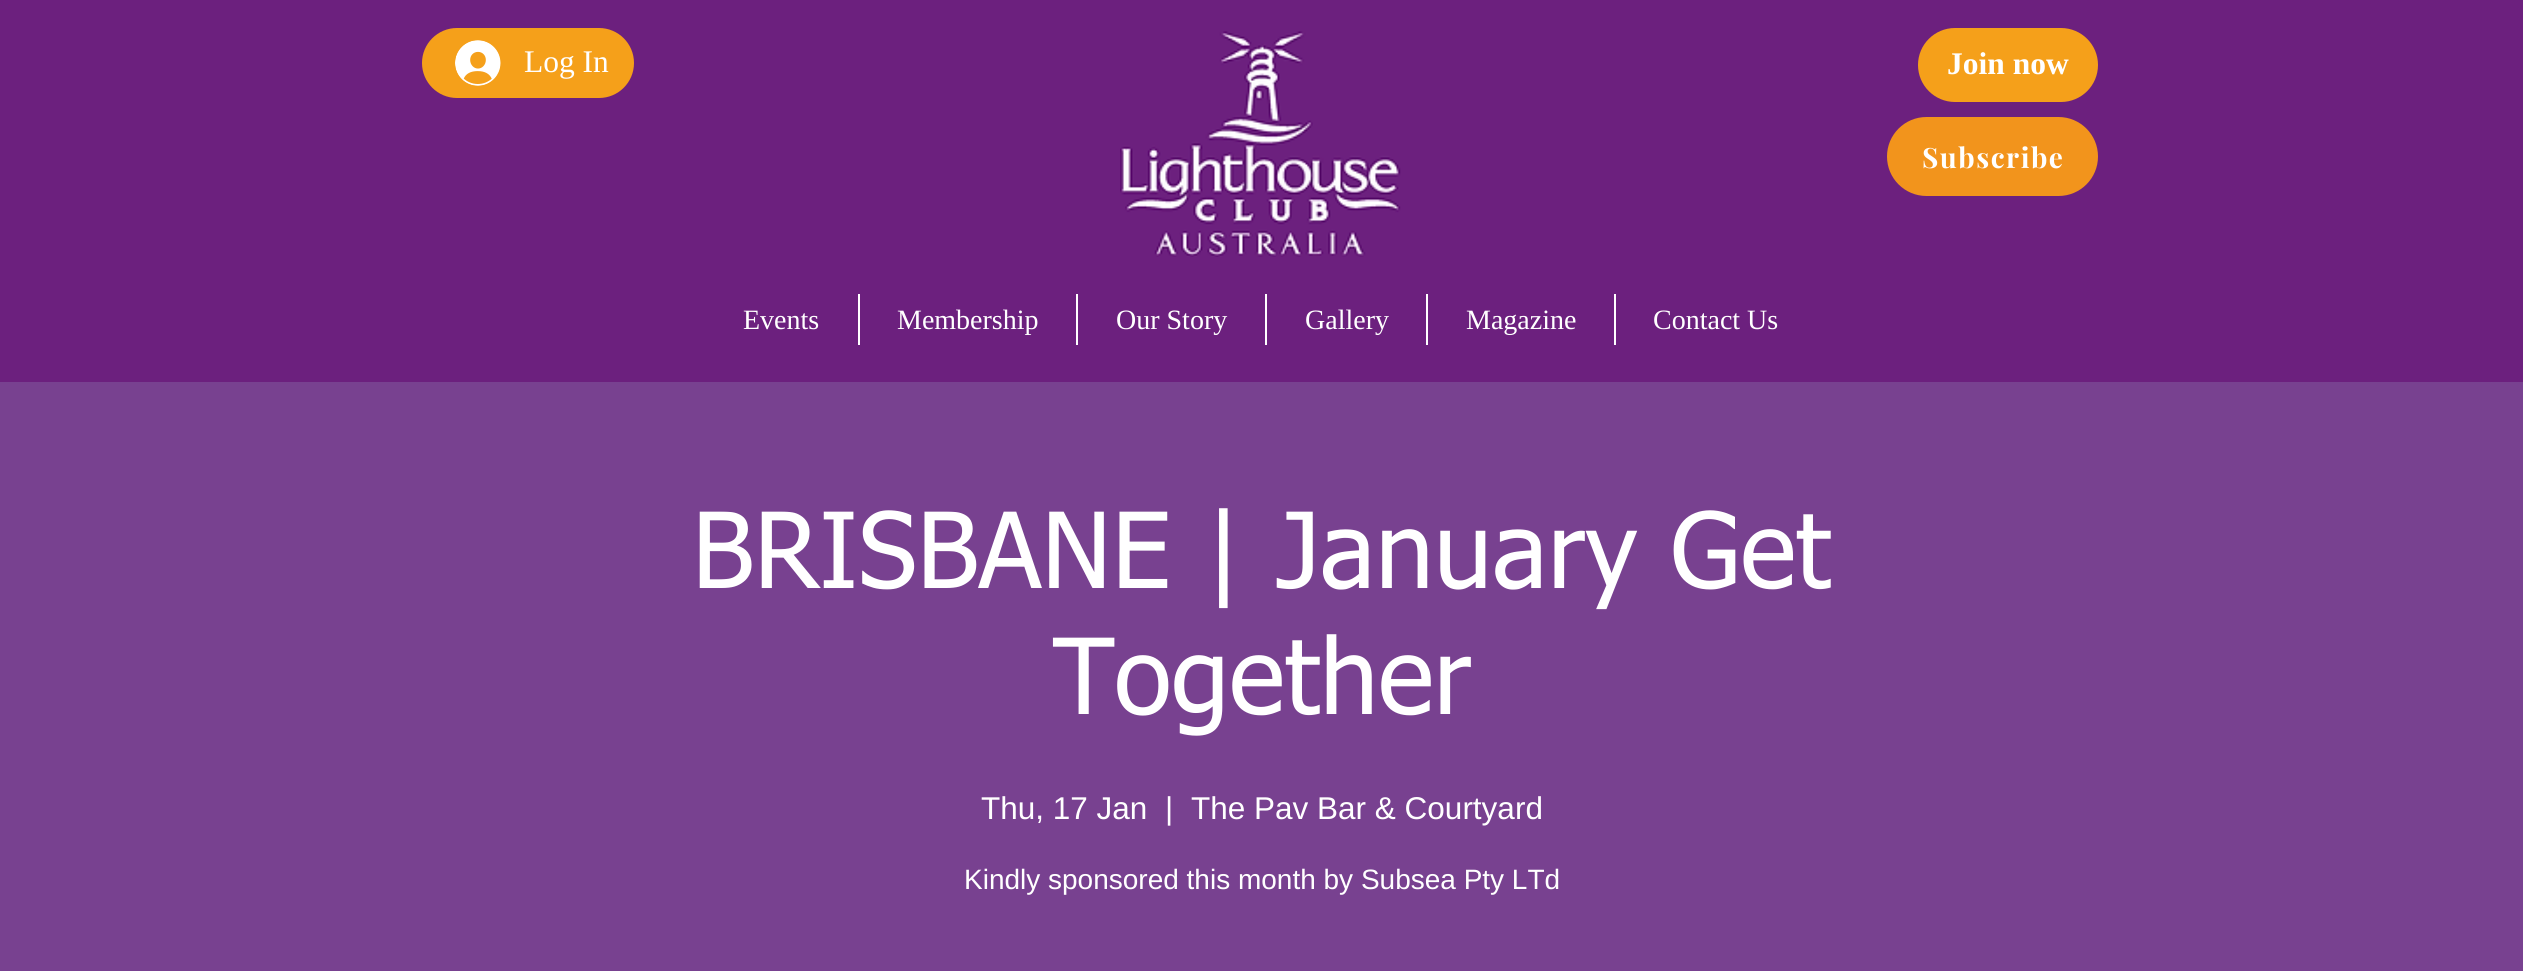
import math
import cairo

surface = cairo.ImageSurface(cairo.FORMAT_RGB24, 2523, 971)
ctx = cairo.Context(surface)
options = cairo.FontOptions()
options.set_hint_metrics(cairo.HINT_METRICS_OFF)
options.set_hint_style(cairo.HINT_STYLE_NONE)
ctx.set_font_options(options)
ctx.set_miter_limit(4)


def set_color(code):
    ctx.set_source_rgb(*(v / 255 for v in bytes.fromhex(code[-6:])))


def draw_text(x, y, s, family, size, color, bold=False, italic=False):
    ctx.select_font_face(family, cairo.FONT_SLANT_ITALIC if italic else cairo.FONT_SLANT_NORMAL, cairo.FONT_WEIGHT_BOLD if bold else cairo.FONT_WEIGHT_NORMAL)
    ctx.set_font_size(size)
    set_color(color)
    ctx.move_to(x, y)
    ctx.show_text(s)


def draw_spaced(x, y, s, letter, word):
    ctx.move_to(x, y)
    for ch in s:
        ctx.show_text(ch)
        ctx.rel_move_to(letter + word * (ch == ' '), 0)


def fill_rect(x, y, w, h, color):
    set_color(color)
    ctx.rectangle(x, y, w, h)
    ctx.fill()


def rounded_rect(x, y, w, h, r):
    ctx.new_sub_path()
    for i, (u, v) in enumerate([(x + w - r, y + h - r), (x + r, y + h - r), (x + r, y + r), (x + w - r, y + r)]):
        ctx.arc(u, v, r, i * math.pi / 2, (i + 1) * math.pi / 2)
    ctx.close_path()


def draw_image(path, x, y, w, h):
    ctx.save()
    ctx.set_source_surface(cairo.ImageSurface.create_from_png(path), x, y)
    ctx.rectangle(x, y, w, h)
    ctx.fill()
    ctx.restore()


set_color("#6c207e")
ctx.paint()
set_color("#f5a01a")
rounded_rect(422, 28, 212, 70, 35)
ctx.fill()
draw_image("assets/img1.png", 455, 40, 46, 46)
draw_text(524, 72, "Log In", "Liberation Serif", 31.5, "#ffffff")
draw_image("assets/img2.png", 1120, 31, 281, 226)
set_color("#f5a01a")
rounded_rect(1918, 28, 180, 74, 37)
ctx.fill()
draw_text(1947, 74, "Join now", "Liberation Serif", 31.5, "#ffffff", bold=True)
set_color("#f2941c")
rounded_rect(1887, 117, 211, 79, 39.5)
ctx.fill()
ctx.select_font_face("Playfair Display", cairo.FONT_SLANT_NORMAL, cairo.FONT_WEIGHT_BOLD)
ctx.set_font_size(28)
set_color("#ffffff")
draw_spaced(1922, 168, "Subscribe", 1.5, 0)
draw_text(743, 329, "Events", "Liberation Serif", 28, "#ffffff")
fill_rect(858, 294, 2, 51, "#ffffff")
draw_text(897, 329, "Membership", "Liberation Serif", 28, "#ffffff")
fill_rect(1076, 294, 2, 51, "#ffffff")
draw_text(1116, 329, "Our Story", "Liberation Serif", 28, "#ffffff")
fill_rect(1265, 294, 2, 51, "#ffffff")
draw_text(1305, 329, "Gallery", "Liberation Serif", 28, "#ffffff")
fill_rect(1426, 294, 2, 51, "#ffffff")
draw_text(1466, 329, "Magazine", "Liberation Serif", 28, "#ffffff")
fill_rect(1614, 294, 2, 51, "#ffffff")
draw_text(1653, 329, "Contact Us", "Liberation Serif", 28, "#ffffff")
fill_rect(0, 382, 2523, 589, "#784190")
draw_text(692, 588, "BRISBANE | January Get", "tahoma", 105, "#ffffff")
draw_text(1053, 714, "Together", "tahoma", 105, "#ffffff")
draw_text(981, 819, "Thu, 17 Jan", "Liberation Sans", 31.5, "#ffffff")
draw_text(1165, 819, "|", "Liberation Sans", 31.5, "#ffffff")
draw_text(1191, 819, "The Pav Bar & Courtyard", "Liberation Sans", 31.5, "#ffffff")
draw_text(964, 889, "Kindly sponsored this month by Subsea Pty LTd", "Liberation Sans", 28, "#ffffff")
surface.write_to_png("output.png")
